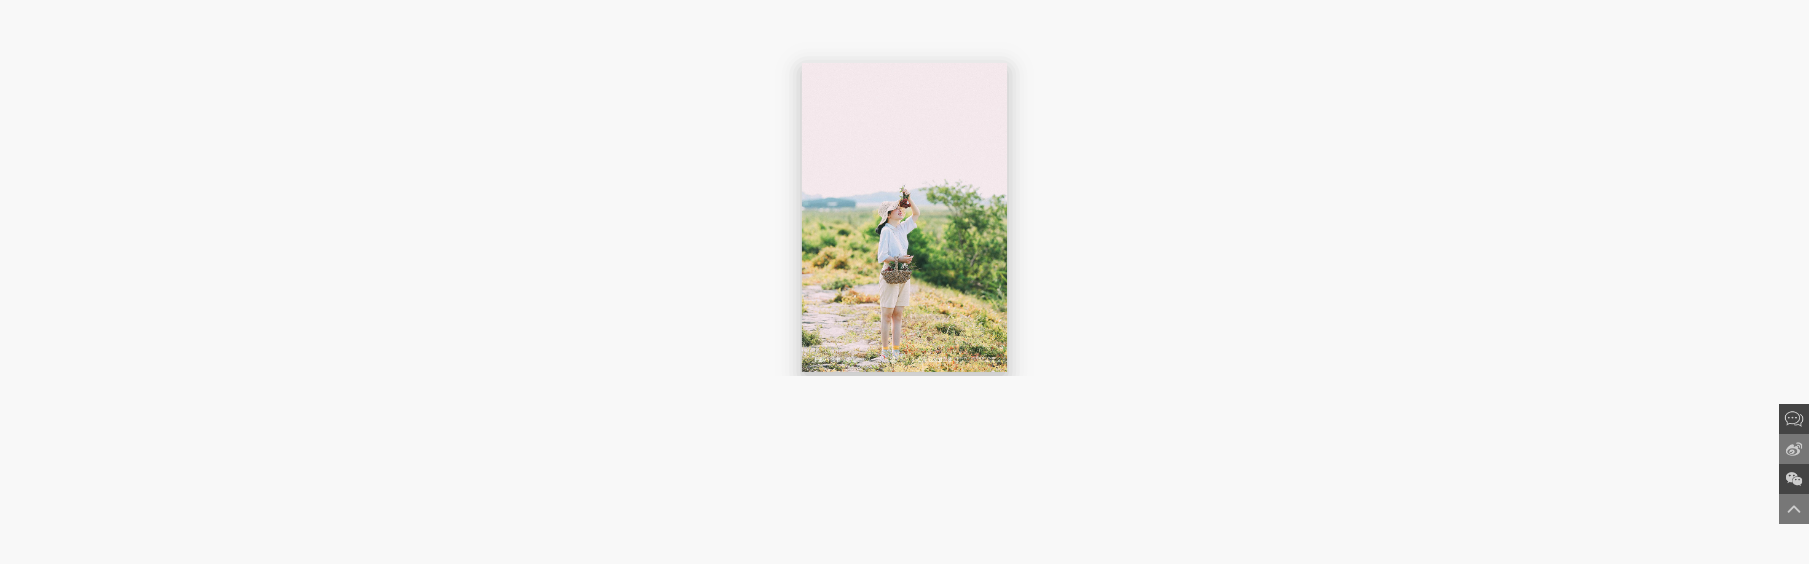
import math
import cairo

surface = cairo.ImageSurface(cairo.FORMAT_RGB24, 1809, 564)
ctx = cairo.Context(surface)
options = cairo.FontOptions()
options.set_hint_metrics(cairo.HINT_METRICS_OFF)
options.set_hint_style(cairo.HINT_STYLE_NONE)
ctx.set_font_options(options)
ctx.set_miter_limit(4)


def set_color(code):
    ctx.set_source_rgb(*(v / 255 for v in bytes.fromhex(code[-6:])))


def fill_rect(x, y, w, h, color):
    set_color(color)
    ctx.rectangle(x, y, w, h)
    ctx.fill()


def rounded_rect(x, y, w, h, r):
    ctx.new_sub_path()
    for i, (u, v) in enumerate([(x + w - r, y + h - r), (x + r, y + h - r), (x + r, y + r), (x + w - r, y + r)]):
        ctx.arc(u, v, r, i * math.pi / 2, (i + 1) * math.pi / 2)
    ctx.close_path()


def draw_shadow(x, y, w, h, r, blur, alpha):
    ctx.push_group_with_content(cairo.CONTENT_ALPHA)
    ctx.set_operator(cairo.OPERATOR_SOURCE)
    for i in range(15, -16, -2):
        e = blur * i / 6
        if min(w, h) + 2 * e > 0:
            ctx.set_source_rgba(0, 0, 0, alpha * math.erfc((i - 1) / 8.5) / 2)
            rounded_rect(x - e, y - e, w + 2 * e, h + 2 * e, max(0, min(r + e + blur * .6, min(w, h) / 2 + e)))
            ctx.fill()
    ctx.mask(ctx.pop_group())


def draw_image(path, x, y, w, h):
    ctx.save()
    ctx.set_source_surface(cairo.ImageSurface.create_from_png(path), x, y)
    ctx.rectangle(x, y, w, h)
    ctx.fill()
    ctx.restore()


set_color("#f8f8f8")
ctx.paint()
ctx.save()
ctx.rectangle(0, 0, 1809, 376)
ctx.clip()
set_color("#bbbbbb")
draw_shadow(802, 69, 205, 309, 0, 11, 1)
ctx.restore()
draw_image("assets/img1.png", 801, 63, 207, 309)
fill_rect(1779, 404, 30, 30, "#444444")
draw_image("assets/img2.png", 1784, 411, 20, 16)
fill_rect(1779, 434, 30, 30, "#777777")
draw_image("assets/img3.png", 1786, 442, 17, 14)
fill_rect(1779, 464, 30, 30, "#444444")
draw_image("assets/img4.png", 1786, 472, 17, 14)
fill_rect(1779, 494, 30, 30, "#777777")
draw_image("assets/img5.png", 1787, 505, 14, 8)
surface.write_to_png("output.png")
